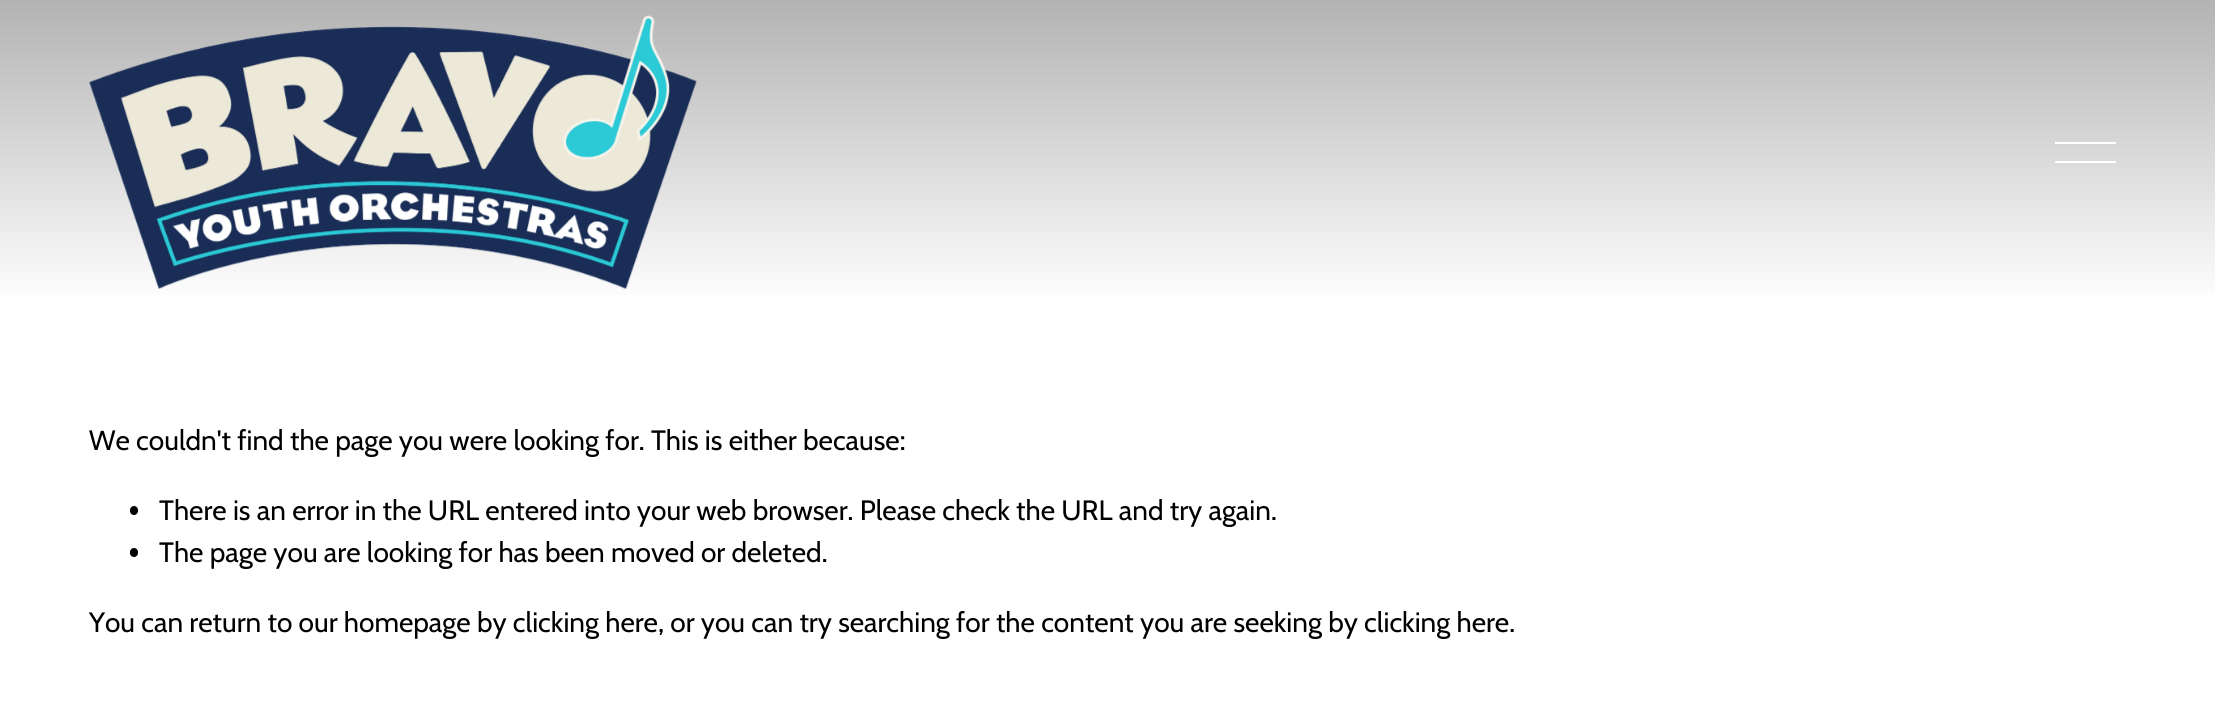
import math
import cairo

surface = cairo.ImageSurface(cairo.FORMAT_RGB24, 2215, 728)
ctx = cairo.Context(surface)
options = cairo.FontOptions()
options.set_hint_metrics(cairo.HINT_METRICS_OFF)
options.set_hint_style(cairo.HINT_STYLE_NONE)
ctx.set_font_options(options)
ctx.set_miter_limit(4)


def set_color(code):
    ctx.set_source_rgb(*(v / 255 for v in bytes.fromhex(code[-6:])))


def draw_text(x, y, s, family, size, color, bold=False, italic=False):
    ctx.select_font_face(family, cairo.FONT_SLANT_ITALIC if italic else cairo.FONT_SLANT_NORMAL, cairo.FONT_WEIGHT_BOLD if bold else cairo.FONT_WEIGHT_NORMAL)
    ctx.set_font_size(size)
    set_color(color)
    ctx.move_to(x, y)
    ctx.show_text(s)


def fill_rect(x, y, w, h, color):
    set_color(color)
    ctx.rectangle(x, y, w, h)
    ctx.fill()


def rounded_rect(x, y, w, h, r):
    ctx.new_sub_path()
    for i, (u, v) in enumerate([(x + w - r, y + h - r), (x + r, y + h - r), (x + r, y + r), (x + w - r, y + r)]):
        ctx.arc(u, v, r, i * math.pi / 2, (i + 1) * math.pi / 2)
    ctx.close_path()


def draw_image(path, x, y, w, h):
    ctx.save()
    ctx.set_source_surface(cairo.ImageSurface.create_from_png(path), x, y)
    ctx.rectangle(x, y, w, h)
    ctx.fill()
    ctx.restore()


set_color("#ffffff")
ctx.paint()
gradient = cairo.LinearGradient(1108, 0, 1108, 305)
gradient.add_color_stop_rgba(0, 0.702, 0.702, 0.702, 1)
gradient.add_color_stop_rgba(1, 1, 1, 1, 1)
ctx.set_source(gradient)
ctx.rectangle(0, 0, 2215, 295)
ctx.fill()
draw_image("assets/img1.png", 89, 15, 608, 274)
fill_rect(2055, 142, 61, 2, "#ffffff")
fill_rect(2055, 161, 61, 2, "#ffffff")
draw_text(89, 450, "We couldn't find the page you were looking for. This is either because:", "Cabin", 28, "#000000")
rounded_rect(130, 506, 8, 9, 4)
ctx.fill()
draw_text(159, 520, "There is an error in the URL entered into your web browser. Please check the URL and try again.", "Cabin", 28, "#000000")
rounded_rect(130, 548, 8, 9, 4)
ctx.fill()
draw_text(159, 562, "The page you are looking for has been moved or deleted.", "Cabin", 28, "#000000")
draw_text(89, 632, "You can return to our homepage by clicking here, or you can try searching for the content you are seeking by clicking here.", "Cabin", 28, "#000000")
surface.write_to_png("output.png")
